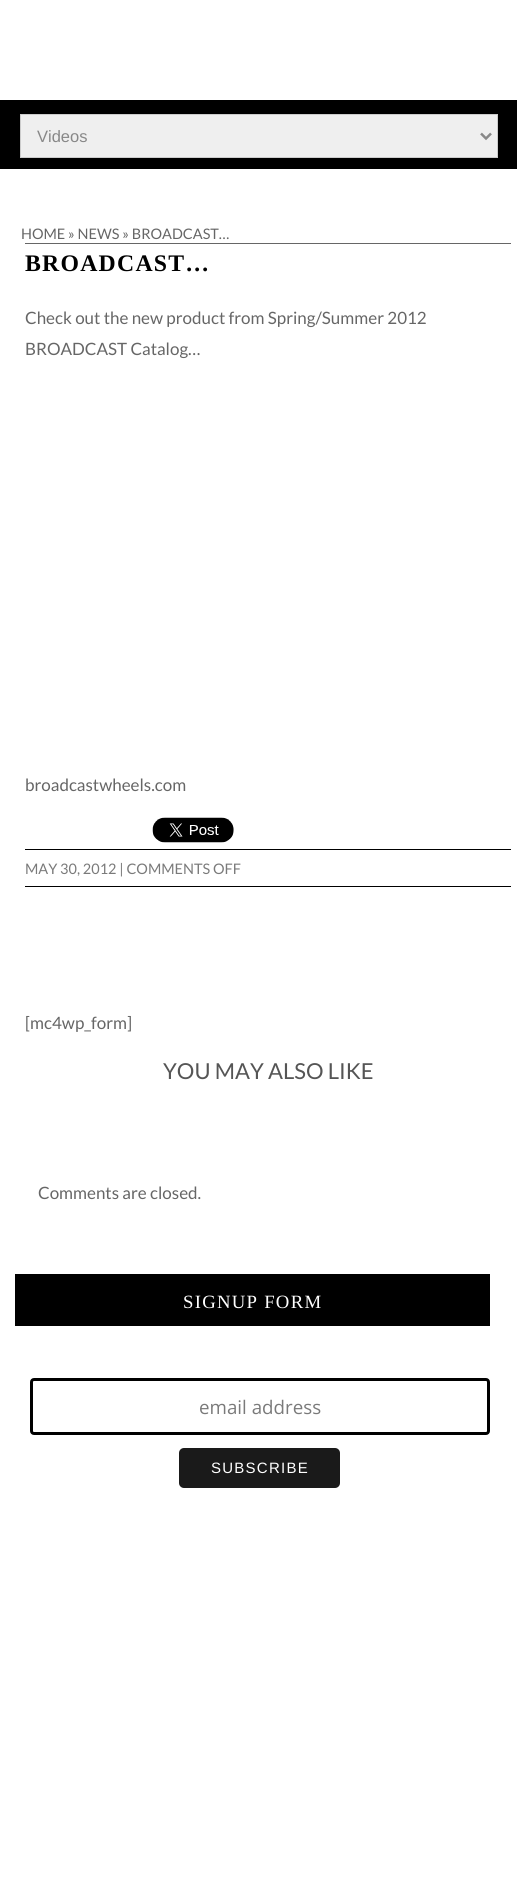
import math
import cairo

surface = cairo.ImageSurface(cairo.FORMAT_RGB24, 517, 1897)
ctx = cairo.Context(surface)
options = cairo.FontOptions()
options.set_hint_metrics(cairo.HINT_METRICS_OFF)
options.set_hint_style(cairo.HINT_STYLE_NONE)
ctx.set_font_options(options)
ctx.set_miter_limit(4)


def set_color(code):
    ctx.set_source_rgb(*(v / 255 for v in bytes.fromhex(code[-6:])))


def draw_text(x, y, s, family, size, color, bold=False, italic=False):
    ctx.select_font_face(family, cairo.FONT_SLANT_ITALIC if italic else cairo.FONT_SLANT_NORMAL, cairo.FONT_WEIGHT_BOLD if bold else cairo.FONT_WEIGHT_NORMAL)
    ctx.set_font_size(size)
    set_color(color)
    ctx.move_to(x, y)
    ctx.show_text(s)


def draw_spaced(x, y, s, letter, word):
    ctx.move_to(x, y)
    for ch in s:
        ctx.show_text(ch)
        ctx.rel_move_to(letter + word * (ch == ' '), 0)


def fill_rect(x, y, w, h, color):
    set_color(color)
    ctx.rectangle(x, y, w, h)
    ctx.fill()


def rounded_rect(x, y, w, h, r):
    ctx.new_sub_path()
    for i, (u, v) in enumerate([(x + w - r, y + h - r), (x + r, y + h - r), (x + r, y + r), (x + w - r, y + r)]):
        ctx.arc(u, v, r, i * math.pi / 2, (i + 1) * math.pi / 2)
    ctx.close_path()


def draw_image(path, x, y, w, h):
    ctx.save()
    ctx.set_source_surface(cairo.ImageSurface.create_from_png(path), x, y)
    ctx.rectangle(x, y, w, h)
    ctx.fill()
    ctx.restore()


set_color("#ffffff")
ctx.paint()
fill_rect(0, 100, 517, 69, "#000000")
set_color("#efefef")
ctx.rectangle(20.5, 114.5, 477, 43)
ctx.fill_preserve()
set_color("#cccccc")
ctx.set_line_width(1)
ctx.stroke()
ctx.new_path()
ctx.move_to(481, 133.5)
ctx.line_to(486, 138.5)
ctx.line_to(491, 133.5)
set_color("#888888")
ctx.set_line_width(2.5)
ctx.stroke()
draw_text(37, 142, "Videos", "Liberation Sans", 16.5, "#888888")
draw_text(21, 239, "HOME » NEWS » BROADCAST…", "Lato", 14.5, "#666666")
fill_rect(25, 243, 486, 1, "#666666")
ctx.select_font_face("Liberation Serif", cairo.FONT_SLANT_NORMAL, cairo.FONT_WEIGHT_BOLD)
ctx.set_font_size(23.75)
set_color("#000000")
draw_spaced(25, 271, "BROADCAST…", 1.25, 0)
draw_text(25, 324, "Check out the new product from Spring/Summer 2012", "Lato", 17, "#666666")
draw_text(25, 355, "BROADCAST Catalog…", "Lato", 17, "#666666")
draw_text(25, 791, "broadcastwheels.com", "Lato", 17, "#666666")
draw_image("assets/img1.png", 152, 817, 82, 26)
fill_rect(25, 849, 486, 1, "#000000")
fill_rect(25, 886, 486, 1, "#000000")
draw_text(25, 874, "MAY 30, 2012 | COMMENTS OFF", "Lato", 14.5, "#7a7a7a")
draw_text(25, 1029, "[mc4wp_form]", "Lato", 17, "#666666")
draw_text(163, 1079, "YOU MAY ALSO LIKE", "Lato", 22, "#555555")
draw_text(38, 1199, "Comments are closed.", "Lato", 17, "#666666")
fill_rect(15, 1274, 475, 52, "#000000")
ctx.select_font_face("Liberation Serif")
ctx.set_font_size(18.75)
set_color("#ffffff")
draw_spaced(183, 1308, "SIGNUP FORM", 1.25, 0)
rounded_rect(31.5, 1379.5, 457, 54, 2.5)
set_color("#000000")
ctx.set_line_width(3)
ctx.stroke()
draw_text(199, 1414, "email address", "Open Sans", 18.75, "#7a7a7a")
set_color("#1a1a1a")
rounded_rect(179, 1448, 161, 40, 5)
ctx.fill()
ctx.select_font_face("Liberation Sans")
ctx.set_font_size(15)
set_color("#ffffff")
draw_spaced(211, 1473, "SUBSCRIBE", 1.25, 0)
surface.write_to_png("output.png")
